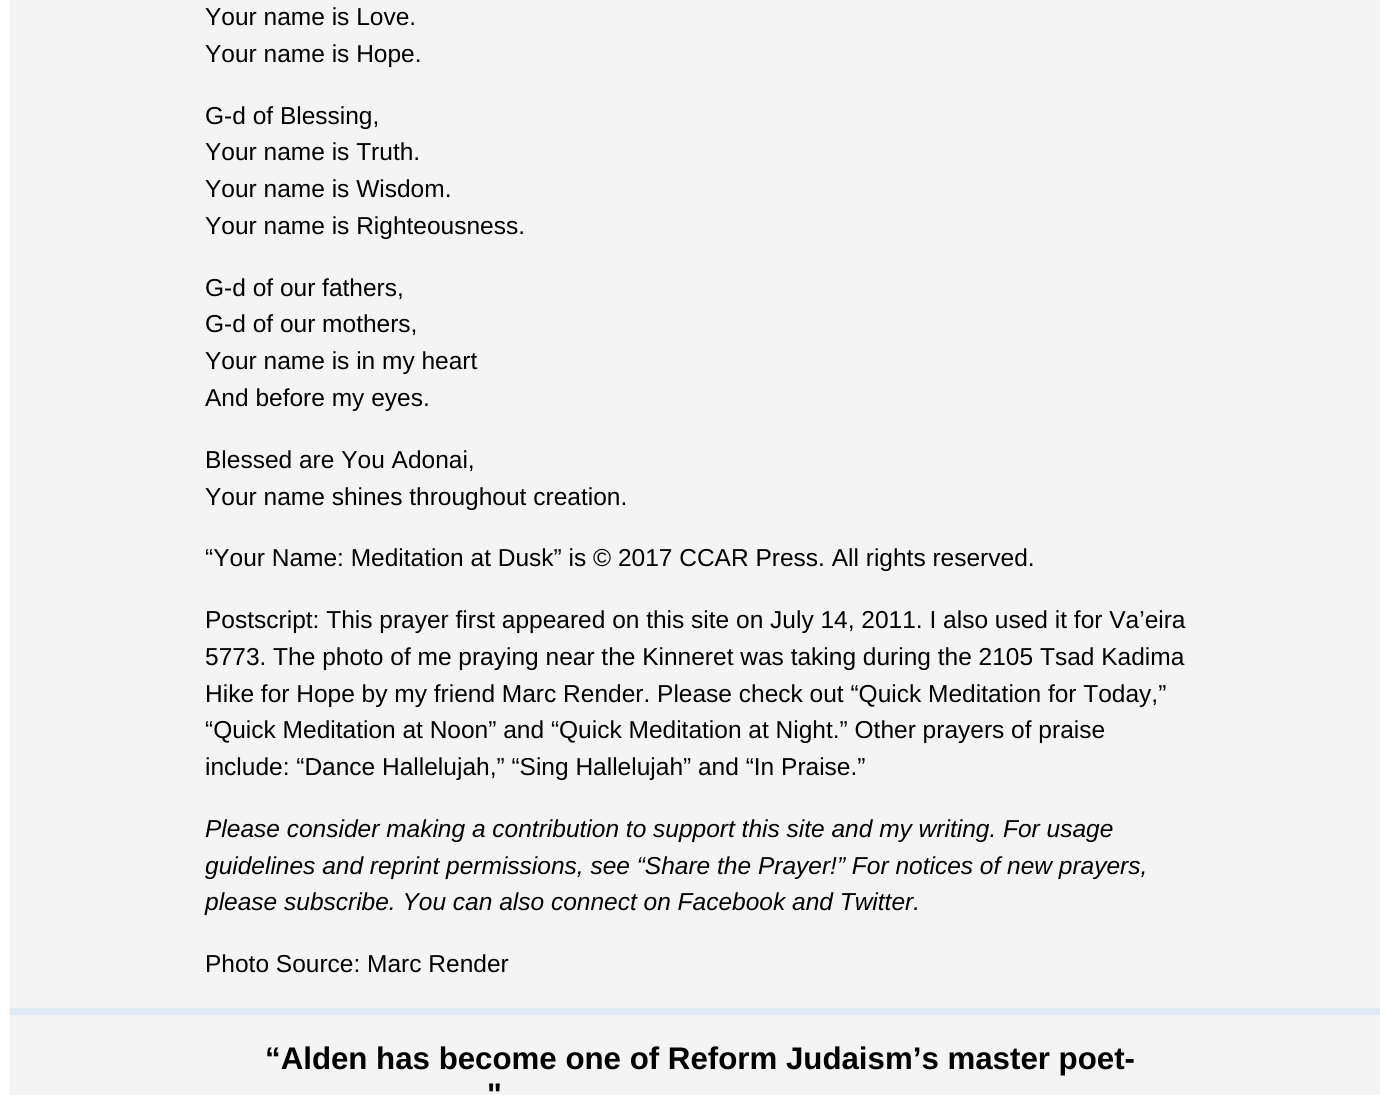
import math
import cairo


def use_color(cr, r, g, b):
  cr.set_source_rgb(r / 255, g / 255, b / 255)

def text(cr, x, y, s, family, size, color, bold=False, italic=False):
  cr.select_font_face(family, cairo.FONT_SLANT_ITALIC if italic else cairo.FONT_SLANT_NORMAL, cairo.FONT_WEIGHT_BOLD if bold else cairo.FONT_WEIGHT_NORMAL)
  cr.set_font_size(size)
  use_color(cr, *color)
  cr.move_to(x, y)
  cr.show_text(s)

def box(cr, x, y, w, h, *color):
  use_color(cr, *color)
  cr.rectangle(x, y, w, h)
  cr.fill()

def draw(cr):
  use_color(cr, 255, 255, 255)
  cr.paint()
  box(cr, 10, 0, 1370, 1008, 244, 244, 244)
  box(cr, 10, 1015, 1370, 80, 244, 244, 244)
  box(cr, 10, 1008, 1370, 7, 221, 233, 247)
  text(cr, 205, 25, "Your name is Love.", "Liberation Sans", 24.5, (0, 0, 0))
  text(cr, 205, 62, "Your name is Hope.", "Liberation Sans", 24.5, (0, 0, 0))
  text(cr, 205, 124, "G-d of Blessing,", "Liberation Sans", 24.5, (0, 0, 0))
  text(cr, 205, 160, "Your name is Truth.", "Liberation Sans", 24.5, (0, 0, 0))
  text(cr, 205, 197, "Your name is Wisdom.", "Liberation Sans", 24.5, (0, 0, 0))
  text(cr, 205, 234, "Your name is Righteousness.", "Liberation Sans", 24.5, (0, 0, 0))
  text(cr, 205, 296, "G-d of our fathers,", "Liberation Sans", 24.5, (0, 0, 0))
  text(cr, 205, 332, "G-d of our mothers,", "Liberation Sans", 24.5, (0, 0, 0))
  text(cr, 205, 369, "Your name is in my heart", "Liberation Sans", 24.5, (0, 0, 0))
  text(cr, 205, 406, "And before my eyes.", "Liberation Sans", 24.5, (0, 0, 0))
  text(cr, 205, 468, "Blessed are You Adonai,", "Liberation Sans", 24.5, (0, 0, 0))
  text(cr, 205, 505, "Your name shines throughout creation.", "Liberation Sans", 24.5, (0, 0, 0))
  text(cr, 205, 566, "“Your Name: Meditation at Dusk” is © 2017 CCAR Press. All rights reserved.", "Liberation Sans", 24.5, (0, 0, 0))
  text(cr, 205, 628, "Postscript: This prayer first appeared on this site on July 14, 2011. I also used it for Va’eira", "Liberation Sans", 24.5, (0, 0, 0))
  text(cr, 205, 665, "5773. The photo of me praying near the Kinneret was taking during the 2105 Tsad Kadima", "Liberation Sans", 24.5, (0, 0, 0))
  text(cr, 205, 702, "Hike for Hope by my friend Marc Render. Please check out “Quick Meditation for Today,”", "Liberation Sans", 24.5, (0, 0, 0))
  text(cr, 205, 738, "“Quick Meditation at Noon” and “Quick Meditation at Night.” Other prayers of praise", "Liberation Sans", 24.5, (0, 0, 0))
  text(cr, 205, 775, "include: “Dance Hallelujah,” “Sing Hallelujah” and “In Praise.”", "Liberation Sans", 24.5, (0, 0, 0))
  text(cr, 205, 837, "Please consider making a contribution to support this site and my writing. For usage", "Liberation Sans", 24.5, (0, 0, 0), italic=True)
  text(cr, 205, 874, "guidelines and reprint permissions, see “Share the Prayer!” For notices of new prayers,", "Liberation Sans", 24.5, (0, 0, 0), italic=True)
  text(cr, 205, 910, "please subscribe. You can also connect on Facebook and Twitter.", "Liberation Sans", 24.5, (0, 0, 0), italic=True)
  text(cr, 205, 972, "Photo Source: Marc Render", "Liberation Sans", 24.5, (0, 0, 0))
  text(cr, 265, 1069, "“Alden has become one of Reform Judaism’s master poet-", "Liberation Sans", 31.25, (0, 0, 0), bold=True)
  text(cr, 487, 1105, "\"", "Liberation Sans", 31.25, (0, 0, 0), bold=True)


surface = cairo.ImageSurface(cairo.FORMAT_RGB24, 1380, 1095)
cr = cairo.Context(surface)
options = cairo.FontOptions()
options.set_hint_metrics(cairo.HINT_METRICS_OFF)
options.set_hint_style(cairo.HINT_STYLE_NONE)
cr.set_font_options(options)
cr.set_miter_limit(4)
draw(cr)
surface.write_to_png("out.png")
